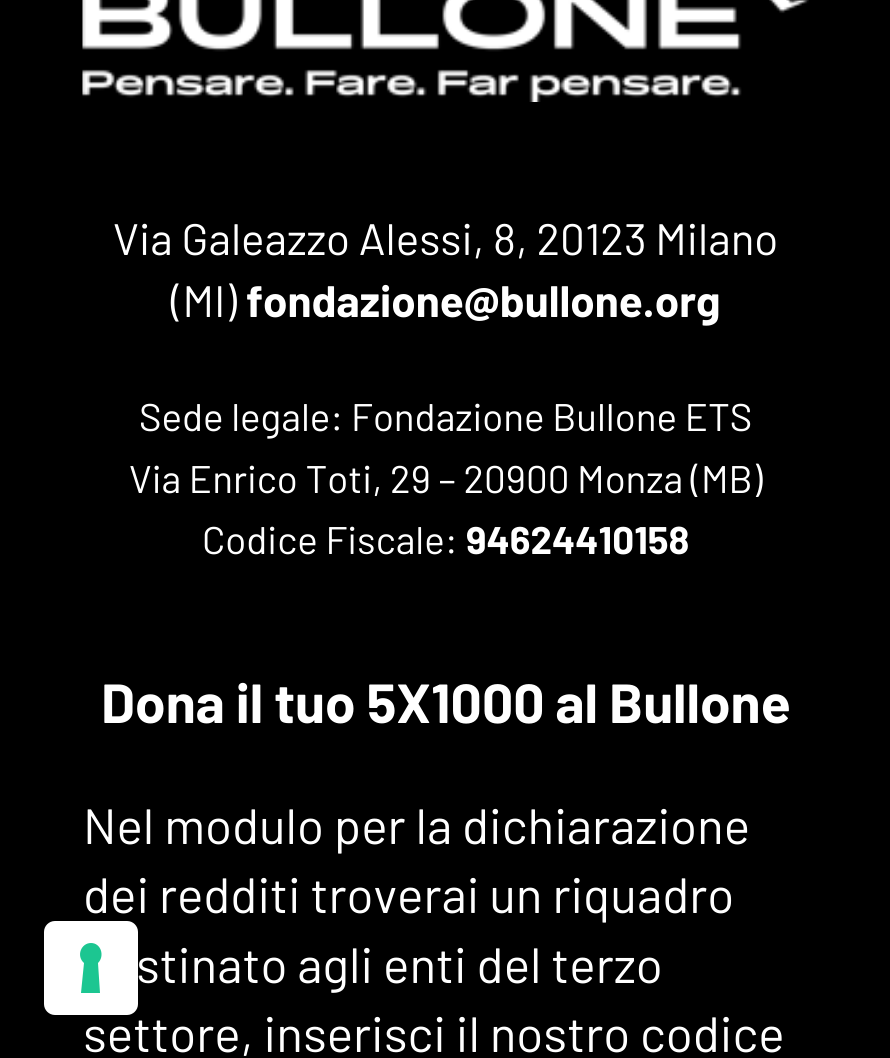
import math
import cairo


def use_color(cr, r, g, b):
  cr.set_source_rgb(r / 255, g / 255, b / 255)

def text(cr, x, y, s, family, size, color, bold=False, italic=False):
  cr.select_font_face(family, cairo.FONT_SLANT_ITALIC if italic else cairo.FONT_SLANT_NORMAL, cairo.FONT_WEIGHT_BOLD if bold else cairo.FONT_WEIGHT_NORMAL)
  cr.set_font_size(size)
  use_color(cr, *color)
  cr.move_to(x, y)
  cr.show_text(s)

def round_rect(cr, x, y, w, h, r):
  cr.new_sub_path()
  for i, (u, v) in enumerate([(x + w - r, y + h - r), (x + r, y + h - r), (x + r, y + r), (x + w - r, y + r)]):
    cr.arc(u, v, r, i * math.pi / 2, (i + 1) * math.pi / 2)
  cr.close_path()

def picture(cr, path, x, y, w, h):
  cr.save()
  cr.set_source_surface(cairo.ImageSurface.create_from_png(path), x, y)
  cr.rectangle(x, y, w, h)
  cr.fill()
  cr.restore()

def draw(cr):
  use_color(cr, 0, 0, 0)
  cr.paint()
  picture(cr, "img_01.png", 82, 0, 727, 102)
  text(cr, 113, 255, "Via Galeazzo Alessi, 8, 20123 Milano", "Barlow", 44, (255, 255, 255))
  text(cr, 171, 317, "(MI)", "Barlow", 44, (255, 255, 255))
  text(cr, 246, 317, "fondazione@bullone.org", "Barlow", 44, (255, 255, 255), bold=True)
  text(cr, 139, 431, "Sede legale: Fondazione Bullone ETS", "Barlow", 38.5, (255, 255, 255))
  text(cr, 129, 493, "Via Enrico Toti, 29 – 20900 Monza (MB)", "Barlow", 38.5, (255, 255, 255))
  text(cr, 202, 554, "Codice Fiscale:", "Barlow", 38.5, (255, 255, 255))
  text(cr, 466, 554, "94624410158", "Barlow", 38.5, (255, 255, 255), bold=True)
  text(cr, 101, 723, "Dona il tuo 5X1000 al Bullone", "Barlow", 55, (255, 255, 255), bold=True)
  text(cr, 83, 844, "Nel modulo per la dichiarazione", "Barlow", 49.5, (255, 255, 255))
  text(cr, 83, 913, "dei redditi troverai un riquadro", "Barlow", 49.5, (255, 255, 255))
  text(cr, 136, 983, "stinato agli enti del terzo", "Barlow", 49.5, (255, 255, 255))
  text(cr, 83, 1052, "settore, inserisci il nostro codice", "Barlow", 49.5, (255, 255, 255))
  round_rect(cr, 42.5, 920.5, 96, 96, 12.5)
  cr.set_source_rgba(0, 0, 0, 0.15)
  cr.set_line_width(3)
  cr.stroke()
  use_color(cr, 255, 255, 255)
  round_rect(cr, 44, 921, 94, 94, 11)
  cr.fill()
  use_color(cr, 28, 198, 145)
  cr.set_fill_rule(cairo.FILL_RULE_EVEN_ODD)
  cr.new_path()
  cr.move_to(91, 943)
  cr.curve_to(101, 943, 105, 956, 98, 963)
  cr.line_to(100, 993)
  cr.line_to(81, 993)
  cr.line_to(84, 963)
  cr.curve_to(76, 956, 81, 943, 91, 943)
  cr.close_path()
  cr.fill()


surface = cairo.ImageSurface(cairo.FORMAT_RGB24, 890, 1058)
cr = cairo.Context(surface)
options = cairo.FontOptions()
options.set_hint_metrics(cairo.HINT_METRICS_OFF)
options.set_hint_style(cairo.HINT_STYLE_NONE)
cr.set_font_options(options)
cr.set_miter_limit(4)
draw(cr)
surface.write_to_png("out.png")
